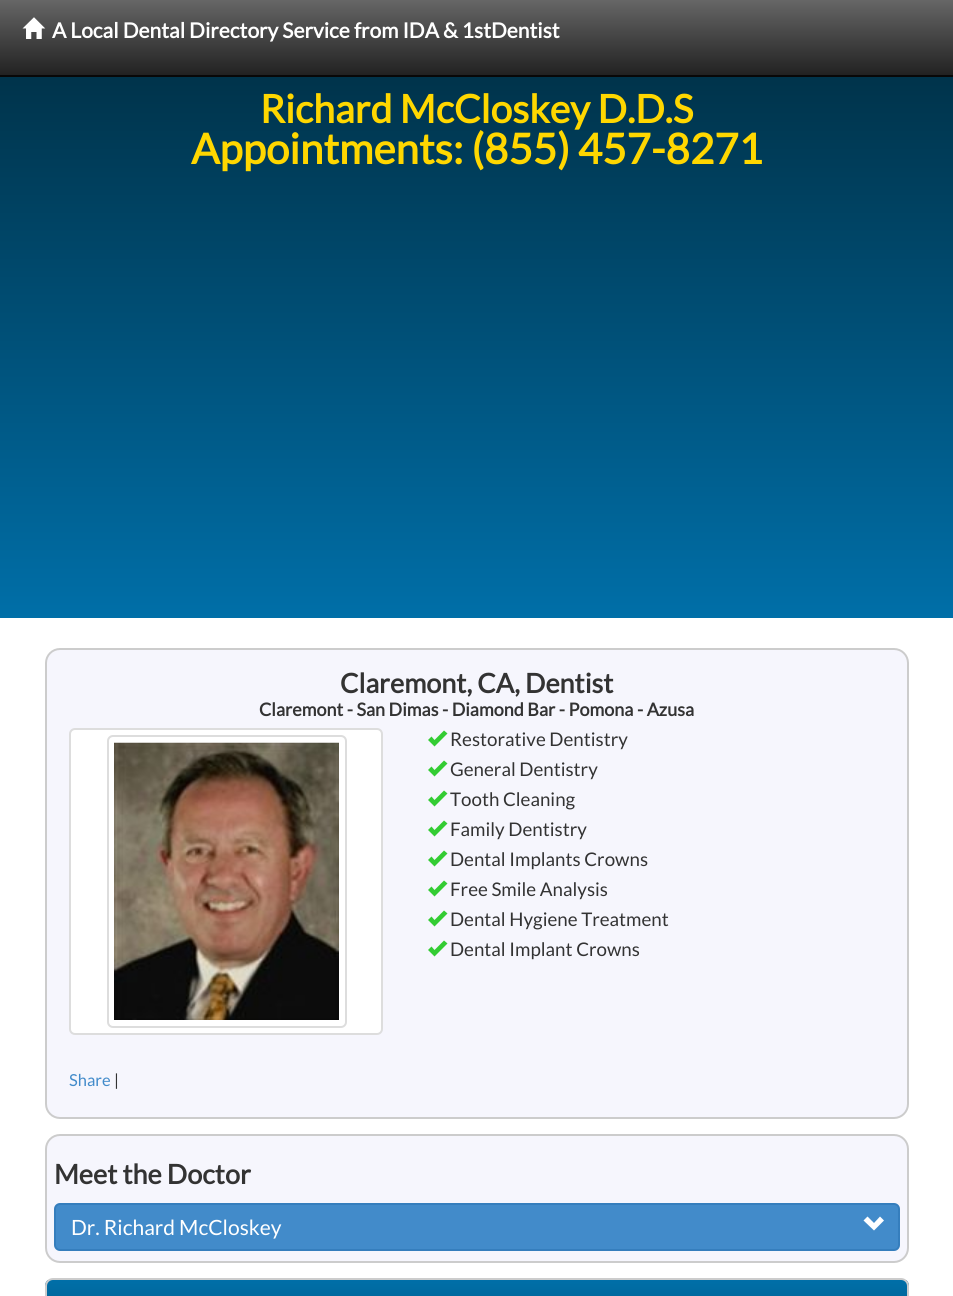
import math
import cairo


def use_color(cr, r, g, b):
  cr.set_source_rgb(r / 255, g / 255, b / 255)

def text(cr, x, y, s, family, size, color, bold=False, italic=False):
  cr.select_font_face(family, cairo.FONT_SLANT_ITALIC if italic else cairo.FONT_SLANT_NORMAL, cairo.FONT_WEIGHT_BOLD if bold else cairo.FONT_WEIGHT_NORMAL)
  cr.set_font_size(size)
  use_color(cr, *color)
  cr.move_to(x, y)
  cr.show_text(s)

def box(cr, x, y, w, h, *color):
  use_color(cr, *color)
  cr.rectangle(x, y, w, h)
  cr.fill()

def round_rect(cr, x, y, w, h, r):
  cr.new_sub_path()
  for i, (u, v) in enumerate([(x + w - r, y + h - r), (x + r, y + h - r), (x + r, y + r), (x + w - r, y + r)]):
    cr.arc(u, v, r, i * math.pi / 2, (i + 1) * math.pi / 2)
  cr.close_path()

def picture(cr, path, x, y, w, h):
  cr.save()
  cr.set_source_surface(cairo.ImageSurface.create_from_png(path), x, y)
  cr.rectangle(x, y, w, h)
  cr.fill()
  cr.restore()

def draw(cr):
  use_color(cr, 255, 255, 255)
  cr.paint()
  gradient = cairo.LinearGradient(477, 0, 477, 75)
  gradient.add_color_stop_rgba(0, 0.4, 0.4, 0.4, 1)
  gradient.add_color_stop_rgba(1, 0.133, 0.133, 0.133, 1)
  cr.set_source(gradient)
  cr.rectangle(0, 0, 953, 75)
  cr.fill()
  box(cr, 0, 75, 953, 2, 8, 8, 8)
  picture(cr, "img_01.png", 22, 17, 24, 22)
  gradient = cairo.LinearGradient(477, 0, 477, 618)
  gradient.add_color_stop_rgba(0, 0, 0.169, 0.243, 1)
  gradient.add_color_stop_rgba(1, 0, 0.435, 0.659, 1)
  cr.set_source(gradient)
  cr.rectangle(0, 77, 953, 541)
  cr.fill()
  use_color(cr, 246, 246, 253)
  round_rect(cr, 46, 649, 862, 469, 14)
  cr.fill_preserve()
  use_color(cr, 204, 204, 204)
  cr.stroke()
  use_color(cr, 255, 255, 255)
  round_rect(cr, 70, 729, 312, 305, 5)
  cr.fill_preserve()
  use_color(cr, 221, 221, 221)
  cr.stroke()
  round_rect(cr, 108, 736, 238, 291, 5)
  cr.stroke()
  picture(cr, "img_02.png", 114, 742, 225, 278)
  use_color(cr, 51, 204, 51)
  cr.new_path()
  cr.move_to(428, 740)
  cr.line_to(434.5, 746.5)
  cr.line_to(447.5, 733.5)
  cr.line_to(444, 730.5)
  cr.line_to(434.5, 740)
  cr.line_to(431.5, 736.5)
  cr.close_path()
  cr.move_to(428, 770)
  cr.line_to(434.5, 776.5)
  cr.line_to(447.5, 763.5)
  cr.line_to(444, 760.5)
  cr.line_to(434.5, 770)
  cr.line_to(431.5, 766.5)
  cr.close_path()
  cr.fill()
  cr.new_path()
  cr.move_to(428, 800)
  cr.line_to(434.5, 806.5)
  cr.line_to(447.5, 793.5)
  cr.line_to(444, 790.5)
  cr.line_to(434.5, 800)
  cr.line_to(431.5, 796.5)
  cr.close_path()
  cr.move_to(428, 830)
  cr.line_to(434.5, 836.5)
  cr.line_to(447.5, 823.5)
  cr.line_to(444, 820.5)
  cr.line_to(434.5, 830)
  cr.line_to(431.5, 826.5)
  cr.close_path()
  cr.fill()
  cr.new_path()
  cr.move_to(428, 860)
  cr.line_to(434.5, 866.5)
  cr.line_to(447.5, 853.5)
  cr.line_to(444, 850.5)
  cr.line_to(434.5, 860)
  cr.line_to(431.5, 856.5)
  cr.close_path()
  cr.move_to(428, 890)
  cr.line_to(434.5, 896.5)
  cr.line_to(447.5, 883.5)
  cr.line_to(444, 880.5)
  cr.line_to(434.5, 890)
  cr.line_to(431.5, 886.5)
  cr.close_path()
  cr.fill()
  cr.new_path()
  cr.move_to(428, 920)
  cr.line_to(434.5, 926.5)
  cr.line_to(447.5, 913.5)
  cr.line_to(444, 910.5)
  cr.line_to(434.5, 920)
  cr.line_to(431.5, 916.5)
  cr.close_path()
  cr.move_to(428, 950)
  cr.line_to(434.5, 956.5)
  cr.line_to(447.5, 943.5)
  cr.line_to(444, 940.5)
  cr.line_to(434.5, 950)
  cr.line_to(431.5, 946.5)
  cr.close_path()
  cr.fill()
  use_color(cr, 246, 246, 253)
  round_rect(cr, 46, 1135, 862, 127, 14)
  cr.fill_preserve()
  use_color(cr, 204, 204, 204)
  cr.stroke()
  use_color(cr, 66, 139, 202)
  round_rect(cr, 55, 1204, 844, 46, 5)
  cr.fill_preserve()
  use_color(cr, 53, 126, 189)
  cr.stroke()
  use_color(cr, 255, 255, 255)
  cr.new_path()
  cr.move_to(863.5, 1220.5)
  cr.line_to(874, 1230.5)
  cr.line_to(884, 1220.5)
  cr.line_to(880, 1216.5)
  cr.line_to(874, 1223)
  cr.line_to(867.5, 1216.5)
  cr.close_path()
  cr.fill()
  cr.save()
  round_rect(cr, 45, 1278, 864, 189, 8)
  cr.clip()
  gradient = cairo.LinearGradient(477, 1280, 477, 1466)
  gradient.add_color_stop_rgba(0, 0, 0.435, 0.659, 1)
  gradient.add_color_stop_rgba(1, 0, 0.169, 0.243, 1)
  cr.set_source(gradient)
  cr.rectangle(45, 1280, 864, 16)
  cr.fill()
  cr.restore()
  round_rect(cr, 46, 1279, 862, 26, 7)
  use_color(cr, 204, 204, 204)
  cr.stroke()
  text(cr, 52, 38, "A Local Dental Directory Service from IDA & 1stDentist", "Lato", 21, (255, 255, 255), bold=True)
  text(cr, 260, 123, "Richard McCloskey D.D.S", "Lato", 39, (255, 215, 0), bold=True)
  text(cr, 191, 164, "Appointments: (855) 457-8271", "Lato", 42, (255, 215, 0), bold=True)
  text(cr, 340, 693, "Claremont, CA, Dentist", "Lato", 27, (51, 51, 51), bold=True)
  text(cr, 259, 716, "Claremont - San Dimas - Diamond Bar - Pomona - Azusa", "Lato", 18, (51, 51, 51), bold=True)
  text(cr, 450, 746, "Restorative Dentistry", "Lato", 18.75, (51, 51, 51))
  text(cr, 450, 776, "General Dentistry", "Lato", 18.75, (51, 51, 51))
  text(cr, 450, 806, "Tooth Cleaning", "Lato", 18.75, (51, 51, 51))
  text(cr, 450, 836, "Family Dentistry", "Lato", 18.75, (51, 51, 51))
  text(cr, 450, 866, "Dental Implants Crowns", "Lato", 18.75, (51, 51, 51))
  text(cr, 450, 896, "Free Smile Analysis", "Lato", 18.75, (51, 51, 51))
  text(cr, 450, 926, "Dental Hygiene Treatment", "Lato", 18.75, (51, 51, 51))
  text(cr, 450, 956, "Dental Implant Crowns", "Lato", 18.75, (51, 51, 51))
  text(cr, 69, 1086, "Share", "Lato", 16.5, (66, 139, 202))
  text(cr, 114, 1086, "|", "Lato", 16.5, (51, 51, 51))
  text(cr, 54, 1184, "Meet the Doctor", "Lato", 27, (51, 51, 51), bold=True)
  text(cr, 71, 1235, "Dr. Richard McCloskey", "Lato", 21, (255, 255, 255))


surface = cairo.ImageSurface(cairo.FORMAT_RGB24, 953, 1296)
cr = cairo.Context(surface)
options = cairo.FontOptions()
options.set_hint_metrics(cairo.HINT_METRICS_OFF)
options.set_hint_style(cairo.HINT_STYLE_NONE)
cr.set_font_options(options)
cr.set_miter_limit(4)
draw(cr)
surface.write_to_png("out.png")
